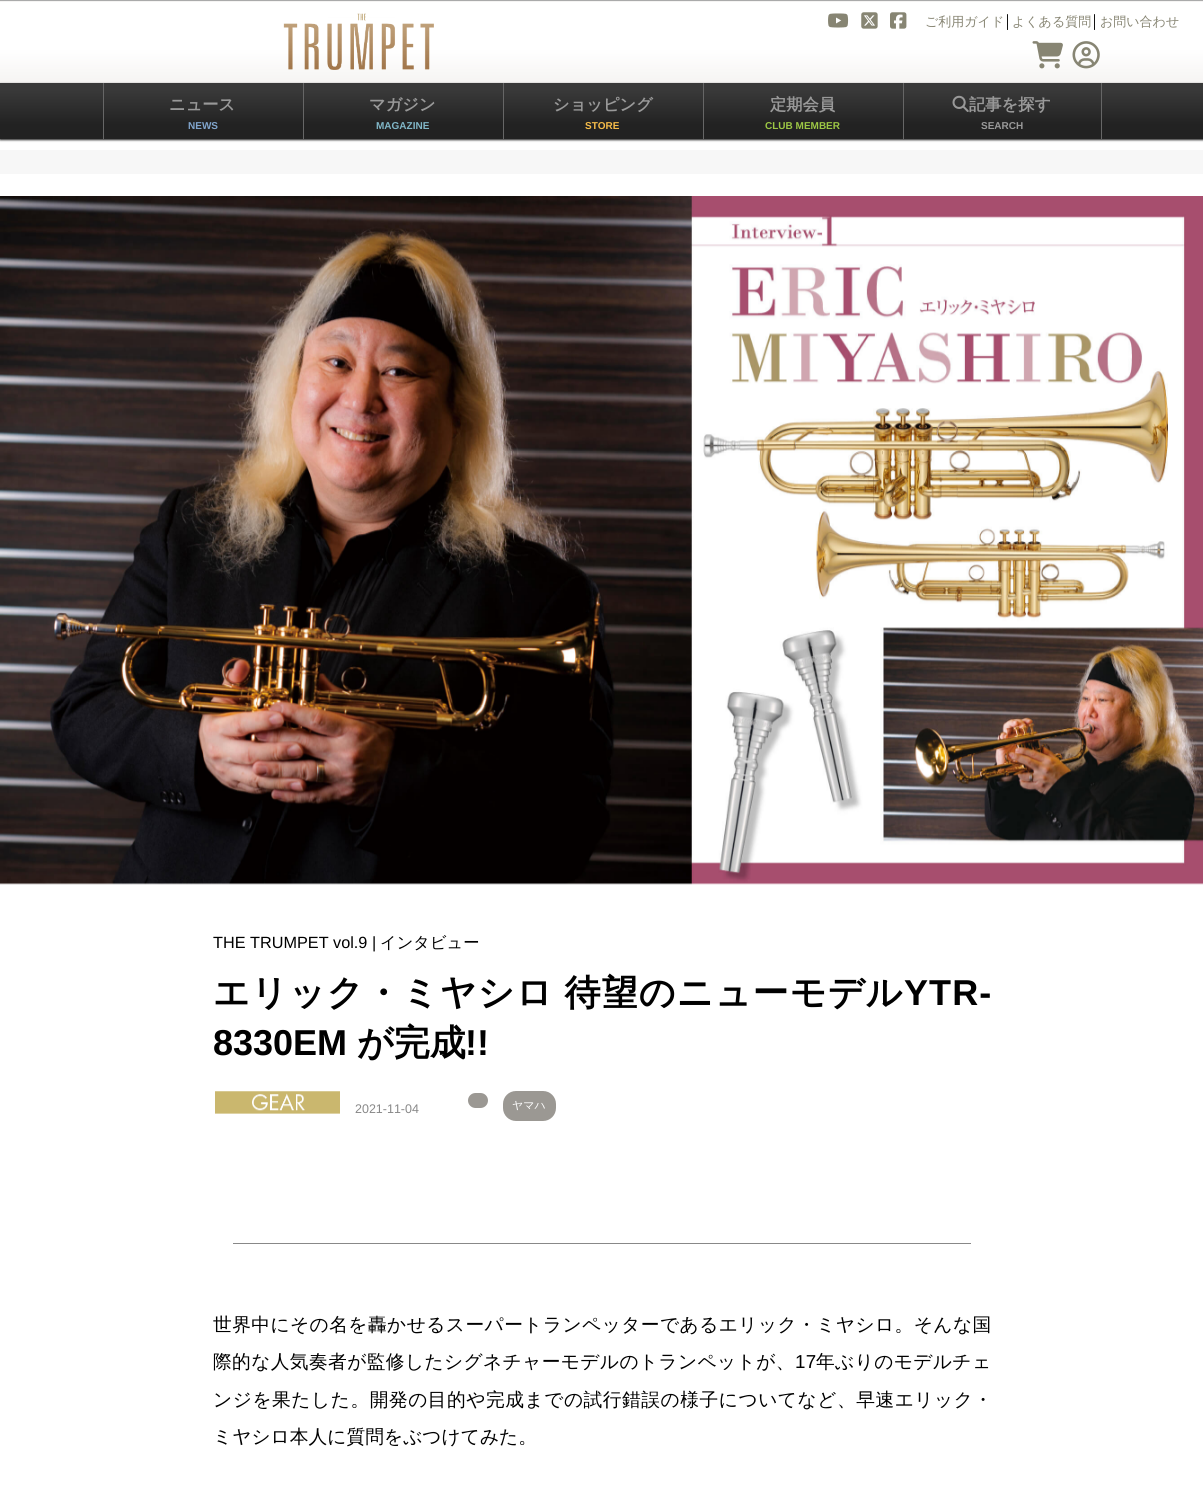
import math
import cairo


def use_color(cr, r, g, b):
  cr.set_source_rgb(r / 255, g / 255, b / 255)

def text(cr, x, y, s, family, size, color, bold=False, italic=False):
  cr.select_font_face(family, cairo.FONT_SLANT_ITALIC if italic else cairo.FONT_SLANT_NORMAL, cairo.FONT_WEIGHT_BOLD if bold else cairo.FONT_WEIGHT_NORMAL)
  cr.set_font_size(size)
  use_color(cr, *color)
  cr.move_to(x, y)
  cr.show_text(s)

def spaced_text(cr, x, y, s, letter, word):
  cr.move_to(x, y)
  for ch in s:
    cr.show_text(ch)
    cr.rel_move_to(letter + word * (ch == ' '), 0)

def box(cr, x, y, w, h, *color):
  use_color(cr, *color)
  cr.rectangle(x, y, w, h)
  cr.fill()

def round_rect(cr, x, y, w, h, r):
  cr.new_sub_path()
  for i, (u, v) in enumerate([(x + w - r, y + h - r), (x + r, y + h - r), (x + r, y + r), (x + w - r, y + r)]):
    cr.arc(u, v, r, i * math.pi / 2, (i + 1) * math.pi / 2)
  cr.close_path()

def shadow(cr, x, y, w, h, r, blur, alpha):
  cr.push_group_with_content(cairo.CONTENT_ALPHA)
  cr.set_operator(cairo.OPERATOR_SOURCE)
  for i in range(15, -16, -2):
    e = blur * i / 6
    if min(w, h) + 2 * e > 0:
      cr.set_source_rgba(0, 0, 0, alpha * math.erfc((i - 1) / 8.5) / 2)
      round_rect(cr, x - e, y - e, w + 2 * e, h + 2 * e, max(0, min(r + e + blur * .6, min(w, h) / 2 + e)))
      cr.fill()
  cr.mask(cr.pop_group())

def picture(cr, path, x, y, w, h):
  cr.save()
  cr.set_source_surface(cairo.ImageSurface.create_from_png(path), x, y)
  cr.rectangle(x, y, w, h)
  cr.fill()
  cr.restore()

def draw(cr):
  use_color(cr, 255, 255, 255)
  cr.paint()
  picture(cr, "img_01.png", 0, 1, 1203, 82)
  box(cr, 0, 0, 1203, 1, 170, 170, 170)
  picture(cr, "img_02.png", 283, 13, 151, 57)
  picture(cr, "img_03.png", 828, 13, 21, 15)
  picture(cr, "img_04.png", 861, 12, 17, 17)
  picture(cr, "img_05.png", 890, 12, 17, 17)
  picture(cr, "img_06.png", 1032, 41, 31, 28)
  picture(cr, "img_07.png", 1072, 41, 28, 28)
  use_color(cr, 34, 34, 34)
  shadow(cr, 0, 84, 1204, 56, 0, 1, 1)
  gradient = cairo.LinearGradient(602, 82, 602, 139)
  gradient.add_color_stop_rgba(0.15, 0.224, 0.224, 0.224, 1)
  gradient.add_color_stop_rgba(0.75, 0.133, 0.133, 0.133, 1)
  cr.set_source(gradient)
  cr.rectangle(0, 83, 1203, 56)
  cr.fill()
  box(cr, 103, 83, 1, 56, 102, 102, 102)
  box(cr, 303, 83, 1, 56, 102, 102, 102)
  box(cr, 503, 83, 1, 56, 102, 102, 102)
  box(cr, 703, 83, 1, 56, 102, 102, 102)
  box(cr, 1101, 83, 1, 56, 102, 102, 102)
  box(cr, 903, 83, 1, 56, 102, 102, 102)
  picture(cr, "img_08.png", 952, 95, 17, 17)
  box(cr, 0, 150, 1203, 24, 247, 247, 247)
  picture(cr, "img_09.png", 0, 196, 1203, 689)
  picture(cr, "img_10.png", 215, 1091, 125, 23)
  use_color(cr, 155, 152, 147)
  round_rect(cr, 468, 1093, 20, 15, 7.5)
  cr.fill()
  round_rect(cr, 503, 1091, 53, 30, 13)
  cr.fill()
  box(cr, 233, 1243, 738, 1, 136, 136, 136)
  text(cr, 925, 26, "ご利用ガイド", "WenQuanYi Zen Hei Medium", 13, (135, 133, 115))
  text(cr, 1004, 26, "│", "Liberation Sans", 13, (0, 0, 0))
  text(cr, 1012, 26, "よくある質問", "WenQuanYi Zen Hei Medium", 13, (135, 133, 115))
  text(cr, 1091, 26, "│", "Liberation Sans", 13, (0, 0, 0))
  text(cr, 1100, 26, "お問い合わせ", "WenQuanYi Zen Hei Medium", 13, (135, 133, 115))
  text(cr, 169, 110, "ニュース", "WenQuanYi Zen Hei", 16.25, (153, 153, 153), bold=True)
  text(cr, 188, 129, "NEWS", "Liberation Sans", 10, (129, 165, 205), bold=True)
  text(cr, 369, 110, "マガジン", "WenQuanYi Zen Hei", 16.25, (153, 153, 153), bold=True)
  text(cr, 376, 129, "MAGAZINE", "Liberation Sans", 10, (129, 183, 200), bold=True)
  text(cr, 553, 110, "ショッピング", "WenQuanYi Zen Hei", 16.25, (153, 153, 153), bold=True)
  text(cr, 585, 129, "STORE", "Liberation Sans", 10, (246, 188, 73), bold=True)
  text(cr, 770, 110, "定期会員", "WenQuanYi Zen Hei", 16.25, (153, 153, 153), bold=True)
  text(cr, 765, 129, "CLUB MEMBER", "Liberation Sans", 10, (156, 199, 68), bold=True)
  text(cr, 969, 110, "記事を探す", "WenQuanYi Zen Hei", 16.25, (153, 153, 153), bold=True)
  text(cr, 981, 129, "SEARCH", "Liberation Sans", 10, (153, 153, 153), bold=True)
  text(cr, 213, 948, "THE TRUMPET vol.9 |", "Liberation Sans", 16.25, (0, 0, 0))
  text(cr, 380, 948, "インタビュー", "WenQuanYi Zen Hei Medium", 16.25, (0, 0, 0))
  cr.select_font_face("WenQuanYi Zen Hei", cairo.FONT_SLANT_NORMAL, cairo.FONT_WEIGHT_BOLD)
  cr.set_font_size(36)
  spaced_text(cr, 213, 1005, "エリック・ミヤシロ 待望のニューモデル", 1.1, -1)
  cr.select_font_face("Liberation Sans", cairo.FONT_SLANT_NORMAL, cairo.FONT_WEIGHT_BOLD)
  spaced_text(cr, 904, 1005, "YTR-", 1.1, 0)
  text(cr, 213, 1055, "8330EM", "Liberation Sans", 36, (0, 0, 0), bold=True)
  text(cr, 357, 1055, "が完成", "WenQuanYi Zen Hei", 36, (0, 0, 0), bold=True)
  text(cr, 465, 1055, "!!", "Liberation Sans", 36, (0, 0, 0), bold=True)
  text(cr, 355, 1113, "2021-11-04", "Liberation Sans", 12.5, (136, 136, 136))
  text(cr, 512, 1109, "ヤマハ", "WenQuanYi Zen Hei Medium", 11, (255, 255, 255))
  cr.set_font_size(18.75)
  use_color(cr, 0, 0, 0)
  spaced_text(cr, 213, 1331, "世界中にその名を轟かせるスーパートランペッターであるエリック・ミヤシロ。そんな国", 0.4, 0)
  spaced_text(cr, 213, 1368, "際的な人気奏者が監修したシグネチャーモデルのトランペットが、", 0.35, 0)
  cr.select_font_face("Liberation Sans")
  spaced_text(cr, 795, 1368, "17", 0.35, 0)
  cr.select_font_face("WenQuanYi Zen Hei Medium")
  spaced_text(cr, 816, 1368, "年ぶりのモデルチェ", 0.35, 0)
  spaced_text(cr, 213, 1406, "ンジを果たした。開発の目的や完成までの試行錯誤の様子についてなど、早速エリック・", 0.5, 0)
  text(cr, 213, 1443, "ミヤシロ本人に質問をぶつけてみた。", "WenQuanYi Zen Hei Medium", 18.75, (0, 0, 0))


surface = cairo.ImageSurface(cairo.FORMAT_RGB24, 1203, 1504)
cr = cairo.Context(surface)
options = cairo.FontOptions()
options.set_hint_metrics(cairo.HINT_METRICS_OFF)
options.set_hint_style(cairo.HINT_STYLE_NONE)
cr.set_font_options(options)
cr.set_miter_limit(4)
draw(cr)
surface.write_to_png("out.png")
